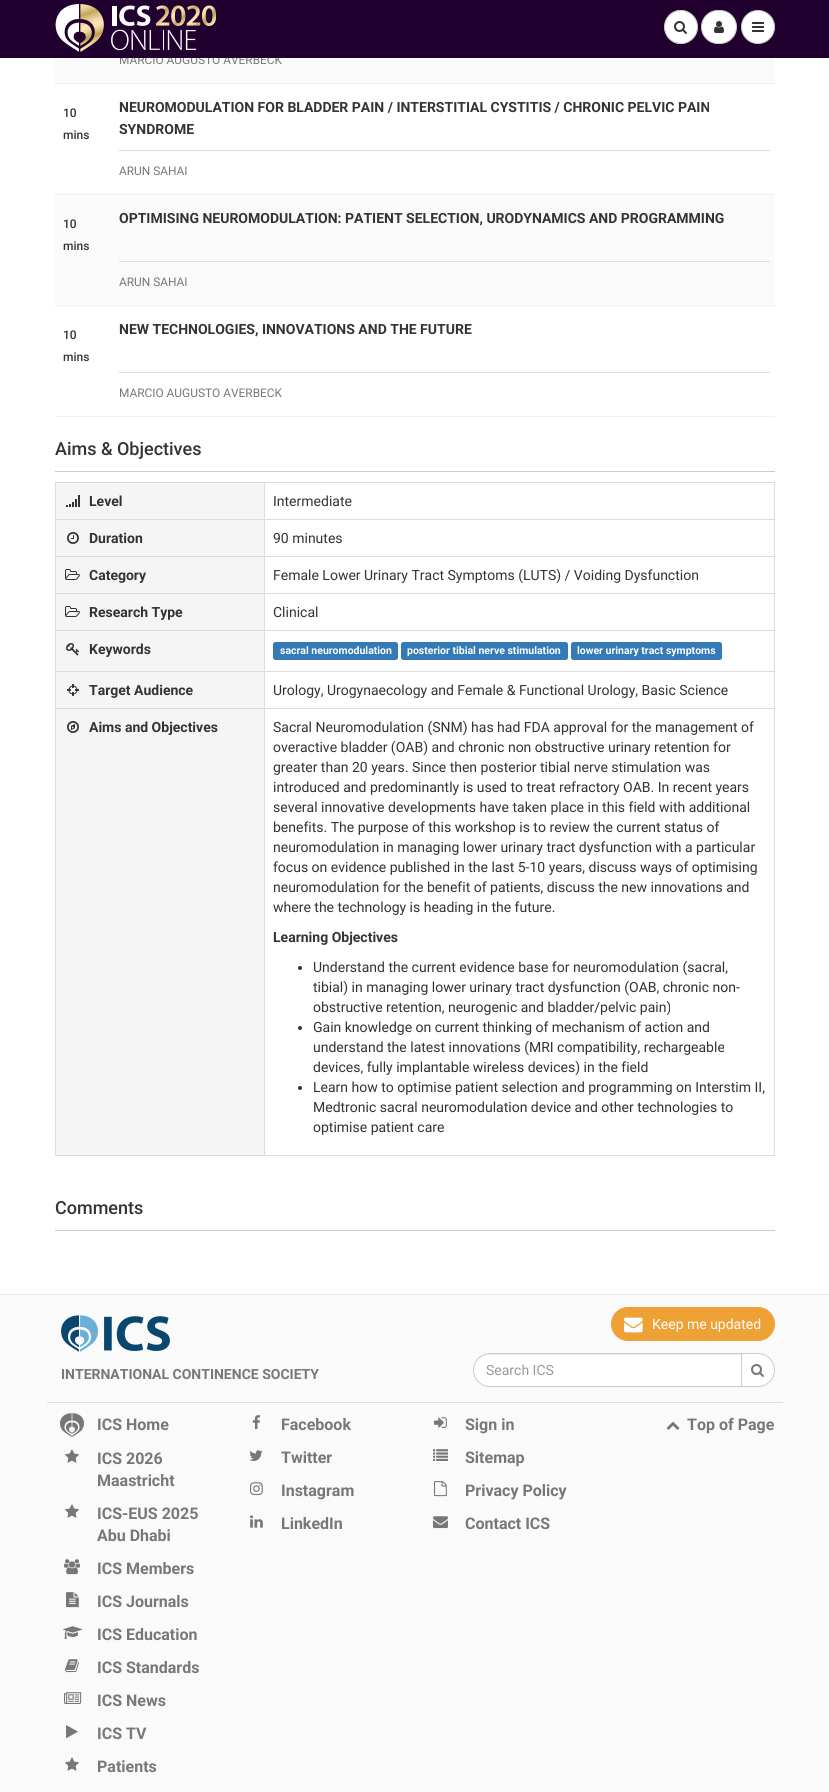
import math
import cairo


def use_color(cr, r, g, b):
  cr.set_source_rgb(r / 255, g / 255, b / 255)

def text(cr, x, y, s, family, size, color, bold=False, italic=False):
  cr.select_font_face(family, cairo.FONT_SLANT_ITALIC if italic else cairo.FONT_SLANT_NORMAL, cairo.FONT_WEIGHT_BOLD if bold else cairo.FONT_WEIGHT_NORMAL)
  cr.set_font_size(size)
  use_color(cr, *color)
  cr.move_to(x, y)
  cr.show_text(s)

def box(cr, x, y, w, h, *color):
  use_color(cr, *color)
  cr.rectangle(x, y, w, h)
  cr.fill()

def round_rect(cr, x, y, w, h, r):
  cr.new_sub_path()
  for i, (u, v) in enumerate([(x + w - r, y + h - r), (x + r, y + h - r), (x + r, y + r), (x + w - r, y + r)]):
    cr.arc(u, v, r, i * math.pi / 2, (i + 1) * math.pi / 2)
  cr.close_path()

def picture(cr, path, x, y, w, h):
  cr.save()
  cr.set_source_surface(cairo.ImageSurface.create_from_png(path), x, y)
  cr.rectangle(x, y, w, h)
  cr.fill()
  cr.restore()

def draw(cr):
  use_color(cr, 255, 255, 255)
  cr.paint()
  box(cr, 55, 58, 720, 25, 250, 250, 250)
  box(cr, 55, 83, 720, 1, 240, 240, 240)
  box(cr, 55, 194, 720, 1, 240, 240, 240)
  box(cr, 119, 150, 651, 1, 221, 221, 221)
  box(cr, 55, 195, 720, 110, 250, 250, 250)
  box(cr, 55, 305, 720, 1, 240, 240, 240)
  box(cr, 119, 261, 651, 1, 221, 221, 221)
  box(cr, 55, 416, 720, 1, 240, 240, 240)
  box(cr, 119, 372, 651, 1, 221, 221, 221)
  box(cr, 55, 471, 720, 1, 204, 204, 204)
  box(cr, 55, 482, 720, 1, 221, 221, 221)
  box(cr, 774, 482, 1, 674, 221, 221, 221)
  box(cr, 55, 1155, 720, 1, 221, 221, 221)
  box(cr, 55, 482, 1, 674, 221, 221, 221)
  box(cr, 56, 483, 208, 36, 245, 245, 245)
  picture(cr, "img_05.png", 66, 495, 14, 12)
  box(cr, 264, 519, 511, 1, 221, 221, 221)
  box(cr, 264, 556, 511, 1, 221, 221, 221)
  box(cr, 264, 593, 511, 1, 221, 221, 221)
  box(cr, 264, 630, 511, 1, 221, 221, 221)
  box(cr, 264, 671, 511, 1, 221, 221, 221)
  box(cr, 264, 708, 511, 1, 221, 221, 221)
  box(cr, 264, 708, 1, 448, 221, 221, 221)
  box(cr, 55, 708, 210, 1, 221, 221, 221)
  box(cr, 264, 671, 1, 38, 221, 221, 221)
  box(cr, 55, 671, 210, 1, 221, 221, 221)
  box(cr, 264, 630, 1, 42, 221, 221, 221)
  box(cr, 55, 630, 210, 1, 221, 221, 221)
  box(cr, 264, 593, 1, 38, 221, 221, 221)
  box(cr, 55, 593, 210, 1, 221, 221, 221)
  box(cr, 264, 556, 1, 38, 221, 221, 221)
  box(cr, 55, 556, 210, 1, 221, 221, 221)
  box(cr, 264, 519, 1, 38, 221, 221, 221)
  box(cr, 55, 519, 210, 1, 221, 221, 221)
  box(cr, 264, 482, 1, 38, 221, 221, 221)
  box(cr, 56, 520, 208, 36, 245, 245, 245)
  picture(cr, "img_06.png", 67, 532, 12, 12)
  box(cr, 56, 557, 208, 36, 245, 245, 245)
  picture(cr, "img_07.png", 65, 569, 15, 11)
  box(cr, 56, 594, 208, 36, 245, 245, 245)
  picture(cr, "img_07.png", 65, 606, 15, 11)
  box(cr, 56, 631, 208, 40, 245, 245, 245)
  picture(cr, "img_08.png", 66, 643, 14, 13)
  use_color(cr, 51, 122, 183)
  round_rect(cr, 273, 642, 125, 18, 2.5)
  cr.fill()
  round_rect(cr, 401, 642, 167, 18, 2.5)
  cr.fill()
  round_rect(cr, 571, 642, 151, 18, 2.5)
  cr.fill()
  box(cr, 56, 672, 208, 36, 245, 245, 245)
  picture(cr, "img_09.png", 67, 684, 12, 12)
  box(cr, 56, 709, 208, 446, 245, 245, 245)
  picture(cr, "img_10.png", 67, 721, 12, 12)
  use_color(cr, 51, 51, 51)
  cr.arc(300, 968, 2, 0, 2 * math.pi)
  cr.fill()
  cr.arc(300, 1028, 2, 0, 2 * math.pi)
  cr.fill()
  cr.arc(300, 1088, 2, 0, 2 * math.pi)
  cr.fill()
  box(cr, 55, 1230, 720, 1, 204, 204, 204)
  box(cr, 0, 1295, 829, 497, 250, 250, 250)
  box(cr, 0, 1294, 829, 1, 231, 231, 231)
  picture(cr, "img_11.png", 61, 1315, 109, 37)
  use_color(cr, 238, 162, 54)
  round_rect(cr, 611.5, 1307.5, 163, 33, 16.5)
  cr.fill_preserve()
  cr.set_line_width(1)
  cr.stroke()
  picture(cr, "img_12.png", 624, 1317, 19, 16)
  use_color(cr, 255, 255, 255)
  round_rect(cr, 473, 1353, 300, 34, 17)
  cr.fill()
  use_color(cr, 236, 236, 236)
  cr.new_path()
  cr.move_to(490, 1355)
  cr.line_to(756, 1355)
  cr.curve_to(765, 1355, 772, 1362, 772, 1370)
  cr.curve_to(772, 1362, 765, 1354, 756, 1354)
  cr.line_to(490, 1354)
  cr.curve_to(481, 1354, 474, 1362, 474, 1370)
  cr.curve_to(474, 1362, 481, 1355, 490, 1355)
  cr.close_path()
  cr.fill()
  round_rect(cr, 473.5, 1353.5, 299, 33, 16.5)
  use_color(cr, 204, 204, 204)
  cr.stroke()
  use_color(cr, 255, 255, 255)
  cr.new_path()
  cr.move_to(741.5, 1353.5)
  cr.line_to(758, 1353.5)
  cr.curve_to(767, 1353.5, 774.5, 1361, 774.5, 1370)
  cr.curve_to(774.5, 1379, 767, 1386.5, 758, 1386.5)
  cr.line_to(741.5, 1386.5)
  cr.close_path()
  cr.fill_preserve()
  use_color(cr, 204, 204, 204)
  cr.stroke()
  picture(cr, "img_13.png", 751, 1364, 13, 13)
  box(cr, 47, 1402, 736, 1, 221, 221, 221)
  picture(cr, "img_14.png", 60, 1413, 24, 24)
  picture(cr, "img_15.png", 65, 1449, 14, 14)
  picture(cr, "img_15.png", 65, 1504, 14, 14)
  picture(cr, "img_16.png", 64, 1559, 17, 16)
  picture(cr, "img_17.png", 66, 1592, 13, 16)
  picture(cr, "img_18.png", 63, 1626, 20, 14)
  picture(cr, "img_19.png", 65, 1659, 14, 14)
  picture(cr, "img_20.png", 64, 1692, 18, 12)
  picture(cr, "img_21.png", 66, 1725, 12, 14)
  picture(cr, "img_15.png", 65, 1757, 14, 14)
  picture(cr, "img_22.png", 252, 1415, 8, 15)
  picture(cr, "img_23.png", 249, 1450, 14, 11)
  picture(cr, "img_24.png", 250, 1482, 13, 14)
  picture(cr, "img_25.png", 250, 1515, 13, 13)
  picture(cr, "img_26.png", 434, 1417, 13, 11)
  picture(cr, "img_27.png", 433, 1449, 15, 12)
  picture(cr, "img_28.png", 434, 1481, 13, 16)
  picture(cr, "img_29.png", 433, 1516, 15, 13)
  picture(cr, "img_30.png", 666, 1421, 14, 9)
  text(cr, 119, 64, "MARCIO AUGUSTO AVERBECK", "Roboto", 11.9, (119, 119, 119))
  box(cr, 0, 0, 829, 58, 33, 0, 48)
  use_color(cr, 255, 255, 255)
  cr.new_path()
  cr.arc(758, 27, 16.5, 0, 2 * math.pi)
  cr.fill_preserve()
  use_color(cr, 204, 204, 204)
  cr.stroke()
  picture(cr, "img_04.png", 752, 22, 12, 10)
  round_rect(cr, 665.5, 10.5, 30, 33, 15)
  cr.stroke()
  use_color(cr, 255, 255, 255)
  cr.arc(681, 27, 16.5, 0, 2 * math.pi)
  cr.fill_preserve()
  use_color(cr, 204, 204, 204)
  cr.stroke()
  picture(cr, "img_02.png", 674, 21, 13, 13)
  use_color(cr, 255, 255, 255)
  round_rect(cr, 701.5, 10.5, 35, 33, 16.5)
  cr.fill_preserve()
  use_color(cr, 204, 204, 204)
  cr.stroke()
  picture(cr, "img_03.png", 714, 21, 10, 12)
  picture(cr, "img_01.png", 55, 4, 161, 48)
  text(cr, 63, 117, "10", "Roboto Medium", 12, (51, 51, 51))
  text(cr, 63, 139, "mins", "Roboto Medium", 12, (51, 51, 51))
  text(cr, 119, 112, "NEUROMODULATION FOR BLADDER PAIN / INTERSTITIAL CYSTITIS / CHRONIC PELVIC PAIN", "Roboto", 14, (51, 51, 51), bold=True)
  text(cr, 119, 134, "SYNDROME", "Roboto", 14, (51, 51, 51), bold=True)
  text(cr, 119, 175, "ARUN SAHAI", "Roboto", 11.9, (119, 119, 119))
  text(cr, 63, 228, "10", "Roboto Medium", 12, (51, 51, 51))
  text(cr, 63, 250, "mins", "Roboto Medium", 12, (51, 51, 51))
  text(cr, 119, 223, "OPTIMISING NEUROMODULATION: PATIENT SELECTION, URODYNAMICS AND PROGRAMMING", "Roboto", 14, (51, 51, 51), bold=True)
  text(cr, 119, 286, "ARUN SAHAI", "Roboto", 11.9, (119, 119, 119))
  text(cr, 63, 339, "10", "Roboto Medium", 12, (51, 51, 51))
  text(cr, 63, 361, "mins", "Roboto Medium", 12, (51, 51, 51))
  text(cr, 119, 334, "NEW TECHNOLOGIES, INNOVATIONS AND THE FUTURE", "Roboto", 14, (51, 51, 51), bold=True)
  text(cr, 119, 397, "MARCIO AUGUSTO AVERBECK", "Roboto", 11.9, (119, 119, 119))
  text(cr, 55, 455, "Aims & Objectives", "Roboto Medium", 18, (51, 51, 51))
  text(cr, 89, 506, "Level", "Roboto", 14, (51, 51, 51), bold=True)
  text(cr, 273, 506, "Intermediate", "Roboto", 14, (51, 51, 51))
  text(cr, 89, 543, "Duration", "Roboto", 14, (51, 51, 51), bold=True)
  text(cr, 273, 543, "90 minutes", "Roboto", 14, (51, 51, 51))
  text(cr, 89, 580, "Category", "Roboto", 14, (51, 51, 51), bold=True)
  text(cr, 273, 580, "Female Lower Urinary Tract Symptoms (LUTS) / Voiding Dysfunction", "Roboto", 14, (51, 51, 51))
  text(cr, 89, 617, "Research Type", "Roboto", 14, (51, 51, 51), bold=True)
  text(cr, 273, 617, "Clinical", "Roboto", 14, (51, 51, 51))
  text(cr, 89, 654, "Keywords", "Roboto", 14, (51, 51, 51), bold=True)
  text(cr, 280, 654, "sacral neuromodulation", "Roboto", 10.5, (255, 255, 255), bold=True)
  text(cr, 407, 654, "posterior tibial nerve stimulation", "Roboto", 10.5, (255, 255, 255), bold=True)
  text(cr, 577, 654, "lower urinary tract symptoms", "Roboto", 10.5, (255, 255, 255), bold=True)
  text(cr, 89, 695, "Target Audience", "Roboto", 14, (51, 51, 51), bold=True)
  text(cr, 273, 695, "Urology, Urogynaecology and Female & Functional Urology, Basic Science", "Roboto", 14, (51, 51, 51))
  text(cr, 89, 732, "Aims and Objectives", "Roboto", 14, (51, 51, 51), bold=True)
  text(cr, 273, 732, "Sacral Neuromodulation (SNM) has had FDA approval for the management of", "Roboto", 14, (51, 51, 51))
  text(cr, 273, 752, "overactive bladder (OAB) and chronic non obstructive urinary retention for", "Roboto", 14, (51, 51, 51))
  text(cr, 273, 772, "greater than 20 years. Since then posterior tibial nerve stimulation was", "Roboto", 14, (51, 51, 51))
  text(cr, 273, 792, "introduced and predominantly is used to treat refractory OAB. In recent years", "Roboto", 14, (51, 51, 51))
  text(cr, 273, 812, "several innovative developments have taken place in this field with additional", "Roboto", 14, (51, 51, 51))
  text(cr, 273, 832, "benefits. The purpose of this workshop is to review the current status of", "Roboto", 14, (51, 51, 51))
  text(cr, 273, 852, "neuromodulation in managing lower urinary tract dysfunction with a particular", "Roboto", 14, (51, 51, 51))
  text(cr, 273, 872, "focus on evidence published in the last 5-10 years, discuss ways of optimising", "Roboto", 14, (51, 51, 51))
  text(cr, 273, 892, "neuromodulation for the benefit of patients, discuss the new innovations and", "Roboto", 14, (51, 51, 51))
  text(cr, 273, 912, "where the technology is heading in the future.", "Roboto", 14, (51, 51, 51))
  text(cr, 273, 942, "Learning Objectives", "Roboto", 14, (51, 51, 51), bold=True)
  text(cr, 313, 972, "Understand the current evidence base for neuromodulation (sacral,", "Roboto", 14, (51, 51, 51))
  text(cr, 313, 992, "tibial) in managing lower urinary tract dysfunction (OAB, chronic non-", "Roboto", 14, (51, 51, 51))
  text(cr, 313, 1012, "obstructive retention, neurogenic and bladder/pelvic pain)", "Roboto", 14, (51, 51, 51))
  text(cr, 313, 1032, "Gain knowledge on current thinking of mechanism of action and", "Roboto", 14, (51, 51, 51))
  text(cr, 313, 1052, "understand the latest innovations (MRI compatibility, rechargeable", "Roboto", 14, (51, 51, 51))
  text(cr, 313, 1072, "devices, fully implantable wireless devices) in the field", "Roboto", 14, (51, 51, 51))
  text(cr, 313, 1092, "Learn how to optimise patient selection and programming on Interstim II,", "Roboto", 14, (51, 51, 51))
  text(cr, 313, 1112, "Medtronic sacral neuromodulation device and other technologies to", "Roboto", 14, (51, 51, 51))
  text(cr, 313, 1132, "optimise patient care", "Roboto", 14, (51, 51, 51))
  text(cr, 55, 1214, "Comments", "Roboto Medium", 18, (51, 51, 51))
  text(cr, 61, 1379, "INTERNATIONAL CONTINENCE SOCIETY", "Roboto", 14, (119, 119, 119), bold=True)
  text(cr, 652, 1329, "Keep me updated", "Roboto", 14, (255, 255, 255))
  text(cr, 486, 1375, "Search ICS", "Roboto", 14, (153, 153, 153))
  text(cr, 97, 1430, "ICS Home", "Roboto", 16, (119, 119, 119), bold=True)
  text(cr, 97, 1464, "ICS 2026", "Roboto", 16, (119, 119, 119), bold=True)
  text(cr, 97, 1486, "Maastricht", "Roboto", 16, (119, 119, 119), bold=True)
  text(cr, 97, 1519, "ICS-EUS 2025", "Roboto", 16, (119, 119, 119), bold=True)
  text(cr, 97, 1541, "Abu Dhabi", "Roboto", 16, (119, 119, 119), bold=True)
  text(cr, 97, 1574, "ICS Members", "Roboto", 16, (119, 119, 119), bold=True)
  text(cr, 97, 1607, "ICS Journals", "Roboto", 16, (119, 119, 119), bold=True)
  text(cr, 97, 1640, "ICS Education", "Roboto", 16, (119, 119, 119), bold=True)
  text(cr, 97, 1673, "ICS Standards", "Roboto", 16, (119, 119, 119), bold=True)
  text(cr, 97, 1706, "ICS News", "Roboto", 16, (119, 119, 119), bold=True)
  text(cr, 97, 1739, "ICS TV", "Roboto", 16, (119, 119, 119), bold=True)
  text(cr, 97, 1772, "Patients", "Roboto", 16, (119, 119, 119), bold=True)
  text(cr, 281, 1430, "Facebook", "Roboto", 16, (119, 119, 119), bold=True)
  text(cr, 281, 1463, "Twitter", "Roboto", 16, (119, 119, 119), bold=True)
  text(cr, 281, 1496, "Instagram", "Roboto", 16, (119, 119, 119), bold=True)
  text(cr, 281, 1529, "LinkedIn", "Roboto", 16, (119, 119, 119), bold=True)
  text(cr, 465, 1430, "Sign in", "Roboto", 16, (119, 119, 119), bold=True)
  text(cr, 465, 1463, "Sitemap", "Roboto", 16, (119, 119, 119), bold=True)
  text(cr, 465, 1496, "Privacy Policy", "Roboto", 16, (119, 119, 119), bold=True)
  text(cr, 465, 1529, "Contact ICS", "Roboto", 16, (119, 119, 119), bold=True)
  text(cr, 687, 1430, "Top of Page", "Roboto", 16, (119, 119, 119), bold=True)


surface = cairo.ImageSurface(cairo.FORMAT_RGB24, 829, 1792)
cr = cairo.Context(surface)
options = cairo.FontOptions()
options.set_hint_metrics(cairo.HINT_METRICS_OFF)
options.set_hint_style(cairo.HINT_STYLE_NONE)
cr.set_font_options(options)
cr.set_miter_limit(4)
draw(cr)
surface.write_to_png("out.png")
